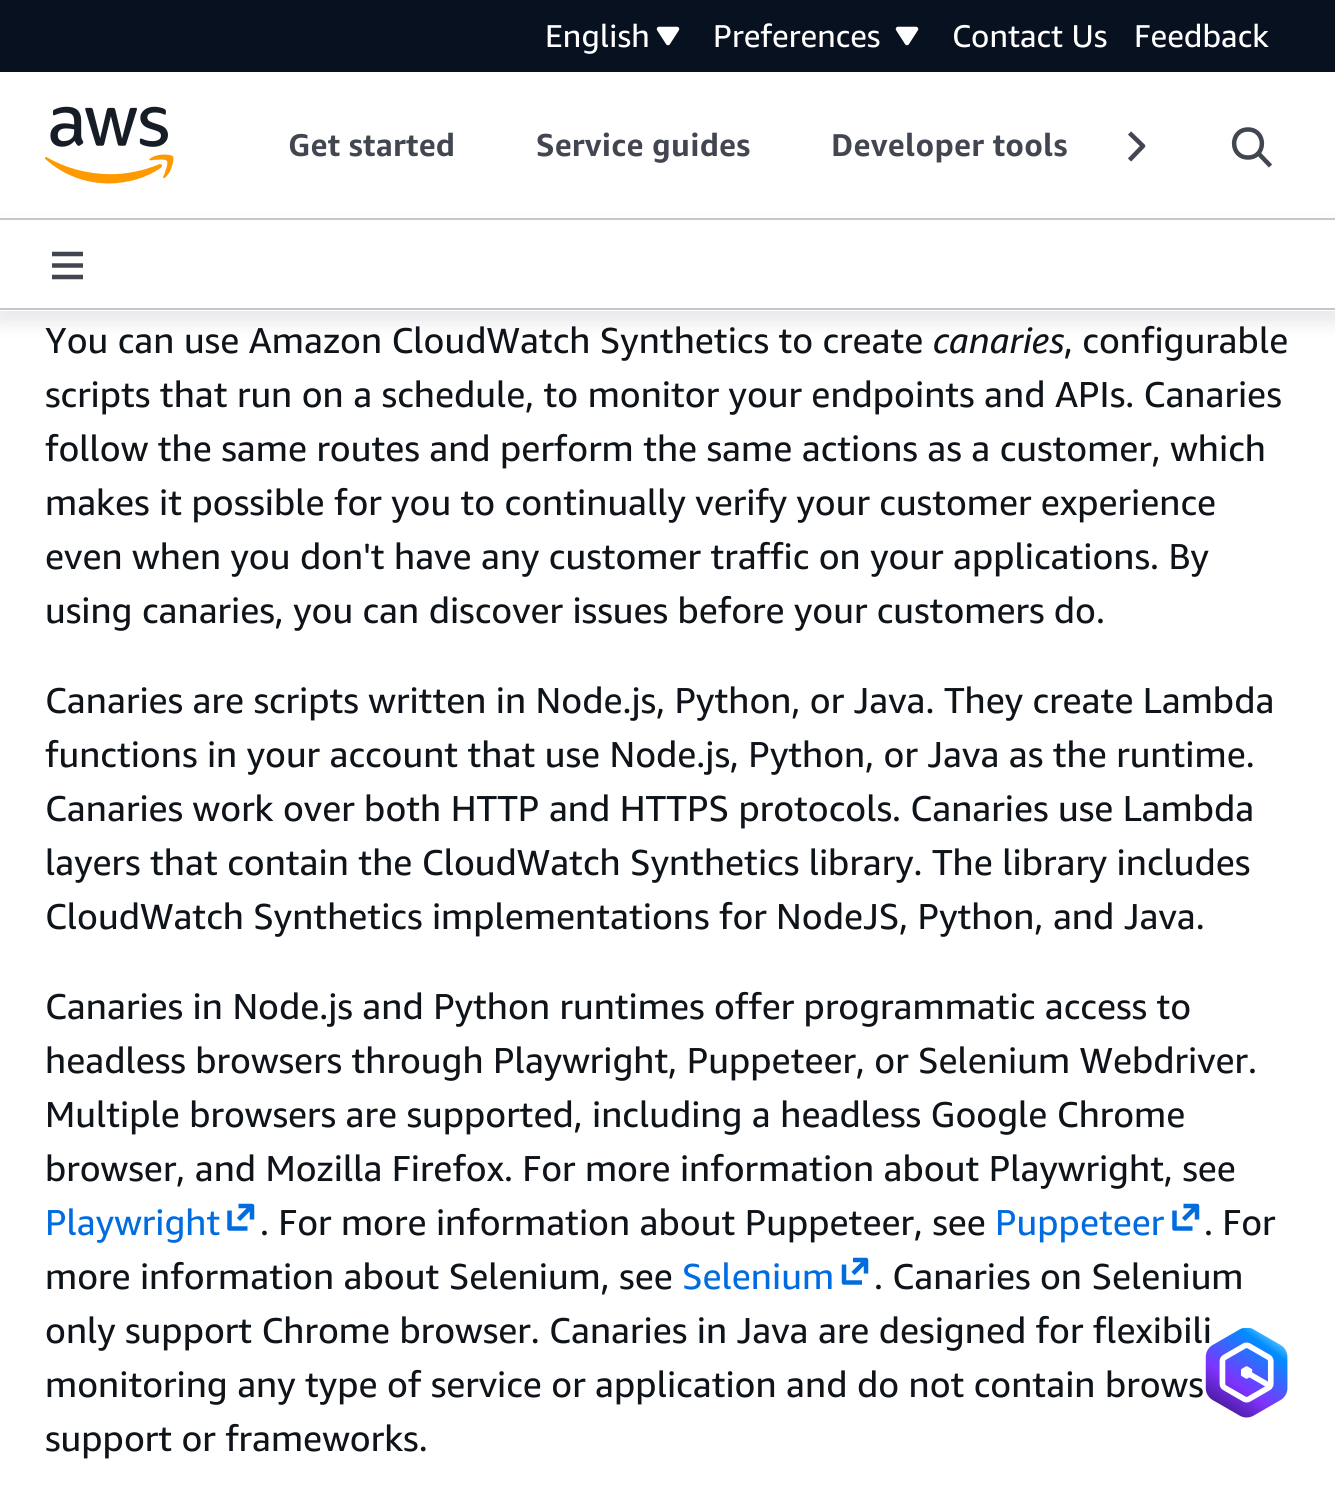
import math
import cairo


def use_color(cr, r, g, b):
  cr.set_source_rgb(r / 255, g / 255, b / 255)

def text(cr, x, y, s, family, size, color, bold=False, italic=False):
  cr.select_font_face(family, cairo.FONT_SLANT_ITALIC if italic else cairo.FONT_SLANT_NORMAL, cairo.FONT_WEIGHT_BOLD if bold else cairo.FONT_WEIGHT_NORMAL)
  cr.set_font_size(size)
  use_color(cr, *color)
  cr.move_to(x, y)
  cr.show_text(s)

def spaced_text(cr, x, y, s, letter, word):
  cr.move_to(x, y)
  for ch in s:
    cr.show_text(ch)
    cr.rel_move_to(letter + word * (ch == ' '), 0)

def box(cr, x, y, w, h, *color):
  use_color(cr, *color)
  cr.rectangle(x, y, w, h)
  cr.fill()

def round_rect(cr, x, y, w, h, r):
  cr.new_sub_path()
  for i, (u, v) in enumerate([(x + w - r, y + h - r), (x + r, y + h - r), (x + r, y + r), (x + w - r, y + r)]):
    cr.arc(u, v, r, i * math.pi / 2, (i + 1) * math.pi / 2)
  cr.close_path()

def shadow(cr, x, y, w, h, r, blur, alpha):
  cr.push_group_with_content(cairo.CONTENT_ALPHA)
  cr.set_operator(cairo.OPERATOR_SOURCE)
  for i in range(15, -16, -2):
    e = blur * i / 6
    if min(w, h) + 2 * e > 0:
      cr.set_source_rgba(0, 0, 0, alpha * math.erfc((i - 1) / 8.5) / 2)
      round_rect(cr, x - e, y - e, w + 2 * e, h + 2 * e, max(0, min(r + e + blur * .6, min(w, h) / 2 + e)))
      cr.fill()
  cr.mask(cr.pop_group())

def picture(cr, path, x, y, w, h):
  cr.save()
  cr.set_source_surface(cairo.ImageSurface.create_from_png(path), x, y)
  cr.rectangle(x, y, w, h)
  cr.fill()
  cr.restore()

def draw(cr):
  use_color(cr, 255, 255, 255)
  cr.paint()
  use_color(cr, 0, 7, 22)
  shadow(cr, -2, 227, 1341, 95, 0, 9, 0.1)
  box(cr, 0, 215, 1335, 96, 255, 255, 255)
  box(cr, 0, 218, 1335, 2, 198, 198, 205)
  box(cr, 0, 0, 1335, 72, 8, 17, 32)
  use_color(cr, 255, 255, 255)
  cr.new_path()
  cr.move_to(668, 43)
  cr.line_to(677, 29)
  cr.line_to(659, 29)
  cr.close_path()
  cr.fill_preserve()
  cr.set_line_width(4.5)
  cr.set_line_join(cairo.LINE_JOIN_ROUND)
  cr.stroke()
  cr.new_path()
  cr.move_to(907, 43)
  cr.line_to(916, 29)
  cr.line_to(898, 29)
  cr.close_path()
  cr.fill_preserve()
  cr.stroke()
  picture(cr, "img_01.png", 45, 106, 129, 78)
  cr.new_path()
  cr.move_to(1129.5, 133)
  cr.line_to(1143, 146)
  cr.line_to(1129.5, 160)
  use_color(cr, 66, 70, 80)
  cr.stroke()
  cr.new_path()
  cr.move_to(1259.5, 154.5)
  cr.line_to(1270.5, 166)
  cr.move_to(1248, 157.5)
  cr.curve_to(1266.5, 157.5, 1266.5, 129.5, 1248, 129.5)
  cr.curve_to(1229.5, 129.5, 1229.5, 157.5, 1248, 157.5)
  cr.close_path()
  cr.stroke()
  box(cr, 0, 308, 1335, 2, 198, 198, 205)
  cr.new_path()
  cr.move_to(83, 254)
  cr.line_to(52, 254)
  cr.move_to(83, 265.5)
  cr.line_to(52, 265.5)
  cr.move_to(83, 277)
  cr.line_to(52, 277)
  use_color(cr, 66, 70, 80)
  cr.stroke()
  cr.new_path()
  cr.move_to(252, 1219.5)
  cr.line_to(252, 1206)
  cr.line_to(238.5, 1206)
  cr.move_to(252, 1206)
  cr.line_to(238.5, 1219.5)
  cr.move_to(229.5, 1210.5)
  cr.line_to(229.5, 1228.5)
  cr.line_to(247.5, 1228.5)
  use_color(cr, 0, 108, 224)
  cr.stroke()
  cr.new_path()
  cr.move_to(1197, 1219.5)
  cr.line_to(1197, 1206)
  cr.line_to(1183.5, 1206)
  cr.move_to(1197, 1206)
  cr.line_to(1183.5, 1219.5)
  cr.move_to(1174.5, 1210.5)
  cr.line_to(1174.5, 1228.5)
  cr.line_to(1192.5, 1228.5)
  cr.stroke()
  cr.new_path()
  cr.move_to(866, 1273.5)
  cr.line_to(866, 1260)
  cr.line_to(853, 1260)
  cr.move_to(866.5, 1260)
  cr.line_to(853, 1273.5)
  cr.move_to(844, 1264.5)
  cr.line_to(844, 1282.5)
  cr.line_to(862, 1282.5)
  cr.stroke()
  cr.select_font_face("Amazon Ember")
  cr.set_font_size(31.5)
  use_color(cr, 255, 255, 255)
  spaced_text(cr, 545, 47, "English", 0.2, 0)
  text(cr, 713, 47, "Preferences", "Amazon Ember", 31.5, (255, 255, 255))
  text(cr, 952, 47, "Contact Us", "Amazon Ember", 31.5, (255, 255, 255))
  text(cr, 1134, 47, "Feedback", "Amazon Ember", 31.5, (255, 255, 255))
  cr.select_font_face("Amazon Ember", cairo.FONT_SLANT_NORMAL, cairo.FONT_WEIGHT_BOLD)
  use_color(cr, 66, 70, 80)
  spaced_text(cr, 288, 156, "Get started", 0.2, 0)
  spaced_text(cr, 536, 156, "Service guides", 0.2, 0)
  spaced_text(cr, 831, 156, "Developer tools", 0.2, 0)
  text(cr, 45, 353, "You can use Amazon CloudWatch Synthetics to create", "Amazon Ember", 36, (15, 20, 26))
  text(cr, 933, 353, "canaries", "Amazon Ember", 36, (15, 20, 26), italic=True)
  text(cr, 1064, 353, ", configurable", "Amazon Ember", 36, (15, 20, 26))
  text(cr, 45, 407, "scripts that run on a schedule, to monitor your endpoints and APIs. Canaries", "Amazon Ember", 36, (15, 20, 26))
  text(cr, 45, 461, "follow the same routes and perform the same actions as a customer, which", "Amazon Ember", 36, (15, 20, 26))
  text(cr, 45, 515, "makes it possible for you to continually verify your customer experience", "Amazon Ember", 36, (15, 20, 26))
  text(cr, 45, 569, "even when you don't have any customer traffic on your applications. By", "Amazon Ember", 36, (15, 20, 26))
  text(cr, 45, 623, "using canaries, you can discover issues before your customers do.", "Amazon Ember", 36, (15, 20, 26))
  text(cr, 45, 713, "Canaries are scripts written in Node.js, Python, or Java. They create Lambda", "Amazon Ember", 36, (15, 20, 26))
  text(cr, 45, 767, "functions in your account that use Node.js, Python, or Java as the runtime.", "Amazon Ember", 36, (15, 20, 26))
  text(cr, 45, 821, "Canaries work over both HTTP and HTTPS protocols. Canaries use Lambda", "Amazon Ember", 36, (15, 20, 26))
  text(cr, 45, 875, "layers that contain the CloudWatch Synthetics library. The library includes", "Amazon Ember", 36, (15, 20, 26))
  text(cr, 45, 929, "CloudWatch Synthetics implementations for NodeJS, Python, and Java.", "Amazon Ember", 36, (15, 20, 26))
  text(cr, 45, 1019, "Canaries in Node.js and Python runtimes offer programmatic access to", "Amazon Ember", 36, (15, 20, 26))
  text(cr, 45, 1073, "headless browsers through Playwright, Puppeteer, or Selenium Webdriver.", "Amazon Ember", 36, (15, 20, 26))
  text(cr, 45, 1127, "Multiple browsers are supported, including a headless Google Chrome", "Amazon Ember", 36, (15, 20, 26))
  text(cr, 45, 1181, "browser, and Mozilla Firefox. For more information about Playwright, see", "Amazon Ember", 36, (15, 20, 26))
  text(cr, 45, 1235, "Playwright", "Amazon Ember", 36, (0, 108, 224))
  text(cr, 260, 1235, ". For more information about Puppeteer, see", "Amazon Ember", 36, (15, 20, 26))
  text(cr, 995, 1235, "Puppeteer", "Amazon Ember", 36, (0, 108, 224))
  text(cr, 1204, 1235, ". For", "Amazon Ember", 36, (15, 20, 26))
  text(cr, 45, 1289, "more information about Selenium, see", "Amazon Ember", 36, (15, 20, 26))
  text(cr, 682, 1289, "Selenium", "Amazon Ember", 36, (0, 108, 224))
  text(cr, 874, 1289, ". Canaries on Selenium", "Amazon Ember", 36, (15, 20, 26))
  text(cr, 45, 1343, "only support Chrome browser. Canaries in Java are designed for flexibili", "Amazon Ember", 36, (15, 20, 26))
  text(cr, 45, 1397, "monitoring any type of service or application and do not contain brows", "Amazon Ember", 36, (15, 20, 26))
  text(cr, 45, 1451, "support or frameworks.", "Amazon Ember", 36, (15, 20, 26))
  picture(cr, "img_02.png", 1205, 1328, 83, 90)


surface = cairo.ImageSurface(cairo.FORMAT_RGB24, 1335, 1497)
cr = cairo.Context(surface)
options = cairo.FontOptions()
options.set_hint_metrics(cairo.HINT_METRICS_OFF)
options.set_hint_style(cairo.HINT_STYLE_NONE)
cr.set_font_options(options)
cr.set_miter_limit(4)
draw(cr)
surface.write_to_png("out.png")
